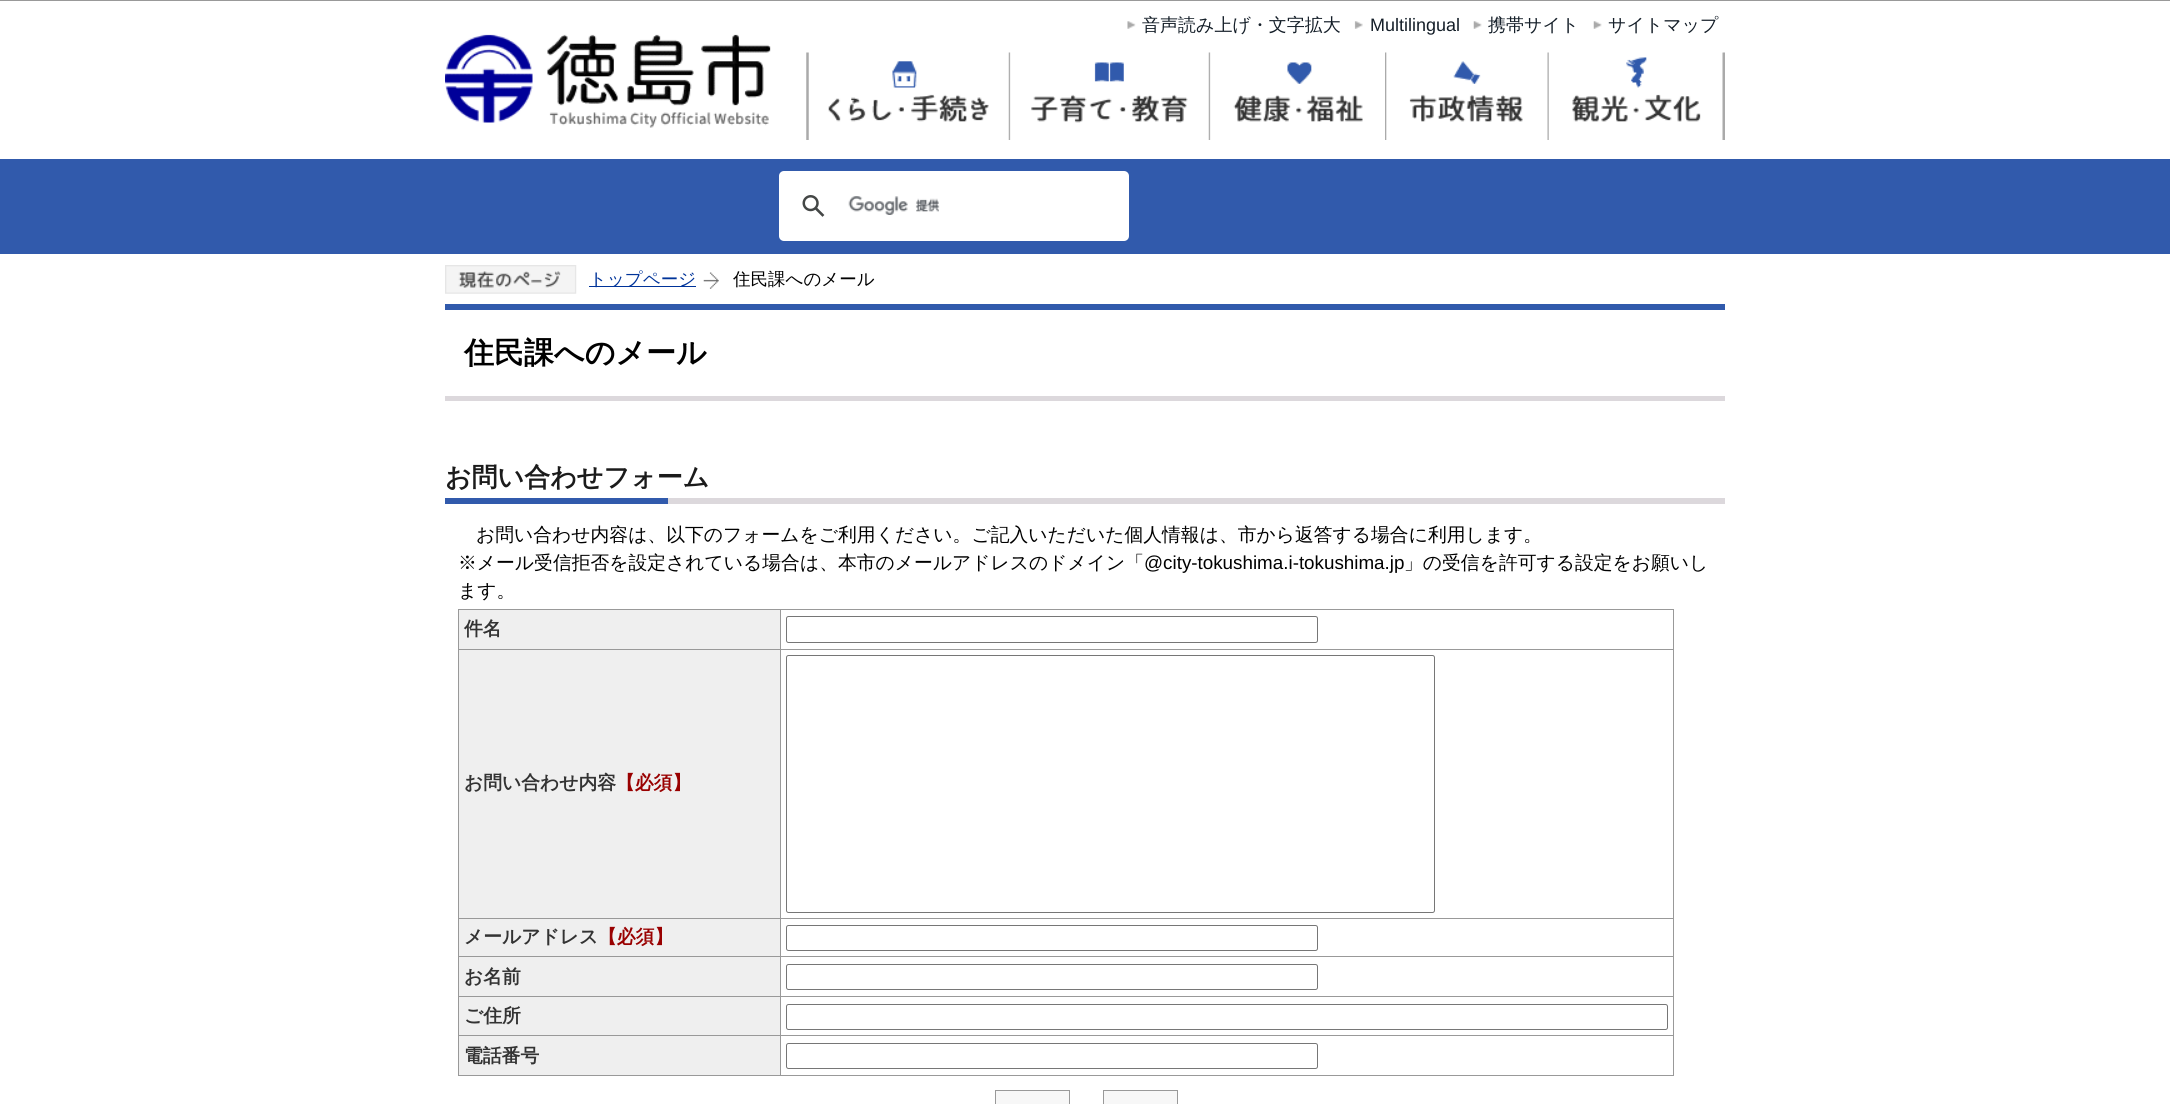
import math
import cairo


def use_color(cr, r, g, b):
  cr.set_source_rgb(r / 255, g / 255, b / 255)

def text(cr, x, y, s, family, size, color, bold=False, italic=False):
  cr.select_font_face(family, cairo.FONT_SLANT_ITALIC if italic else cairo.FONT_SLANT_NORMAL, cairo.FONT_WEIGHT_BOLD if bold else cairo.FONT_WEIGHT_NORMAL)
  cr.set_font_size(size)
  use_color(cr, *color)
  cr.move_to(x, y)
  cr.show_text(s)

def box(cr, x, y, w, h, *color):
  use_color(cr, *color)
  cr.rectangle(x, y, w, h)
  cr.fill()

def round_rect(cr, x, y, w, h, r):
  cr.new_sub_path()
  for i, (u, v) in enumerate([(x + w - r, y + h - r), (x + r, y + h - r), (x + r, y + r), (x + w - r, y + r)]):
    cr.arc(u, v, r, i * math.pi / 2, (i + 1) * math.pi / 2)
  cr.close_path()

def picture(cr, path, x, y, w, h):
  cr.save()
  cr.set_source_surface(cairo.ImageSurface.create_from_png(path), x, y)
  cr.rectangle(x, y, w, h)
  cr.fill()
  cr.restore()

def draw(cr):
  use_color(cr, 255, 255, 255)
  cr.paint()
  box(cr, 0, 0, 2170, 1, 153, 153, 153)
  picture(cr, "img_01.png", 1127, 21, 9, 8)
  picture(cr, "img_02.png", 1354, 21, 9, 8)
  picture(cr, "img_03.png", 1473, 21, 9, 8)
  picture(cr, "img_03.png", 1593, 21, 9, 8)
  picture(cr, "img_04.png", 445, 34, 326, 94)
  picture(cr, "img_05.png", 806, 52, 183, 88)
  picture(cr, "img_06.png", 1008, 52, 180, 88)
  picture(cr, "img_07.png", 1208, 52, 155, 88)
  picture(cr, "img_08.png", 1385, 52, 138, 88)
  picture(cr, "img_09.png", 1547, 52, 178, 88)
  box(cr, 0, 159, 2170, 95, 49, 90, 172)
  use_color(cr, 255, 255, 255)
  round_rect(cr, 779, 171, 350, 70, 5)
  cr.fill()
  picture(cr, "img_10.png", 802, 195, 23, 22)
  picture(cr, "img_11.png", 848, 196, 92, 19)
  picture(cr, "img_12.png", 445, 265, 132, 29)
  picture(cr, "img_13.png", 703, 272, 16, 17)
  box(cr, 589, 286, 107, 1, 0, 51, 153)
  box(cr, 445, 304, 1280, 6, 49, 90, 172)
  box(cr, 445, 396, 1280, 5, 220, 216, 220)
  box(cr, 668, 498, 1057, 6, 220, 216, 220)
  box(cr, 445, 498, 223, 6, 49, 90, 172)
  box(cr, 458, 609, 1216, 1, 153, 153, 153)
  box(cr, 1673, 609, 1, 467, 153, 153, 153)
  box(cr, 458, 1075, 1216, 1, 153, 153, 153)
  box(cr, 458, 609, 1, 467, 153, 153, 153)
  box(cr, 459, 610, 321, 39, 239, 239, 239)
  box(cr, 780, 649, 894, 1, 153, 153, 153)
  box(cr, 780, 918, 894, 1, 153, 153, 153)
  box(cr, 459, 919, 321, 77, 239, 239, 239)
  box(cr, 780, 956, 894, 1, 153, 153, 153)
  box(cr, 780, 996, 894, 1, 153, 153, 153)
  box(cr, 780, 1035, 894, 1, 153, 153, 153)
  box(cr, 780, 1035, 1, 41, 153, 153, 153)
  box(cr, 458, 1035, 323, 1, 153, 153, 153)
  box(cr, 780, 996, 1, 40, 153, 153, 153)
  box(cr, 458, 996, 323, 1, 153, 153, 153)
  box(cr, 780, 956, 1, 42, 153, 153, 153)
  box(cr, 458, 956, 323, 1, 153, 153, 153)
  box(cr, 780, 918, 1, 40, 153, 153, 153)
  box(cr, 458, 918, 323, 1, 153, 153, 153)
  box(cr, 780, 649, 1, 270, 153, 153, 153)
  box(cr, 458, 649, 323, 1, 153, 153, 153)
  box(cr, 780, 609, 1, 41, 153, 153, 153)
  round_rect(cr, 786.5, 616.5, 531, 26, 2)
  use_color(cr, 118, 118, 118)
  cr.set_line_width(1)
  cr.stroke()
  box(cr, 459, 650, 321, 268, 239, 239, 239)
  round_rect(cr, 786.5, 655.5, 648, 257, 2)
  use_color(cr, 118, 118, 118)
  cr.stroke()
  round_rect(cr, 786.5, 925.5, 531, 25, 2)
  cr.stroke()
  round_rect(cr, 786.5, 964.5, 531, 25, 2)
  cr.stroke()
  box(cr, 459, 997, 321, 38, 239, 239, 239)
  round_rect(cr, 786.5, 1004.5, 881, 25, 2)
  use_color(cr, 118, 118, 118)
  cr.stroke()
  box(cr, 459, 1036, 321, 39, 239, 239, 239)
  round_rect(cr, 786.5, 1043.5, 531, 25, 2)
  use_color(cr, 118, 118, 118)
  cr.stroke()
  use_color(cr, 247, 247, 247)
  cr.rectangle(995.5, 1090.5, 74, 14)
  cr.fill_preserve()
  use_color(cr, 153, 153, 153)
  cr.stroke()
  use_color(cr, 247, 247, 247)
  cr.rectangle(1103.5, 1090.5, 74, 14)
  cr.fill_preserve()
  use_color(cr, 153, 153, 153)
  cr.stroke()
  text(cr, 1142, 31, "音声読み上げ・文字拡大", "WenQuanYi Zen Hei Medium", 18, (20, 30, 40))
  text(cr, 1370, 31, "Multilingual", "Liberation Sans", 18, (20, 30, 40))
  text(cr, 1488, 31, "携帯サイト", "WenQuanYi Zen Hei Medium", 18, (20, 30, 40))
  text(cr, 1608, 31, "サイトマップ", "WenQuanYi Zen Hei Medium", 18, (20, 30, 40))
  text(cr, 589, 285, "トップページ", "WenQuanYi Zen Hei Medium", 17.5, (0, 51, 153))
  text(cr, 733, 285, "住民課へのメール", "WenQuanYi Zen Hei Medium", 17.5, (0, 0, 0))
  text(cr, 464, 363, "住民課へのメール", "WenQuanYi Zen Hei", 30, (0, 0, 0), bold=True)
  text(cr, 445, 486, "お問い合わせフォーム", "WenQuanYi Zen Hei", 26, (27, 27, 27), bold=True)
  text(cr, 476, 541, "お問い合わせ内容は、以下のフォームをご利用ください。ご記入いただいた個人情報は、市から返答する場合に利用します。", "WenQuanYi Zen Hei Medium", 18.8, (0, 0, 0))
  text(cr, 458, 569, "※メール受信拒否を設定されている場合は、本市のメールアドレスのドメイン「", "WenQuanYi Zen Hei Medium", 18.8, (0, 0, 0))
  text(cr, 1144, 569, "@city-tokushima.i-tokushima.jp", "Liberation Sans", 18.8, (0, 0, 0))
  text(cr, 1404, 569, "」の受信を許可する設定をお願いし", "WenQuanYi Zen Hei Medium", 18.8, (0, 0, 0))
  text(cr, 458, 597, "ます。", "WenQuanYi Zen Hei Medium", 18.8, (0, 0, 0))
  text(cr, 464, 635, "件名", "WenQuanYi Zen Hei", 18.8, (51, 51, 51), bold=True)
  text(cr, 464, 789, "お問い合わせ内容", "WenQuanYi Zen Hei", 18.8, (51, 51, 51), bold=True)
  text(cr, 616, 789, "【必須】", "WenQuanYi Zen Hei", 18.8, (153, 0, 0), bold=True)
  text(cr, 464, 943, "メールアドレス", "WenQuanYi Zen Hei", 18.8, (51, 51, 51), bold=True)
  text(cr, 598, 943, "【必須】", "WenQuanYi Zen Hei", 18.8, (153, 0, 0), bold=True)
  text(cr, 464, 983, "お名前", "WenQuanYi Zen Hei", 18.8, (51, 51, 51), bold=True)
  text(cr, 464, 1022, "ご住所", "WenQuanYi Zen Hei", 18.8, (51, 51, 51), bold=True)
  text(cr, 464, 1062, "電話番号", "WenQuanYi Zen Hei", 18.8, (51, 51, 51), bold=True)


surface = cairo.ImageSurface(cairo.FORMAT_RGB24, 2170, 1104)
cr = cairo.Context(surface)
options = cairo.FontOptions()
options.set_hint_metrics(cairo.HINT_METRICS_OFF)
options.set_hint_style(cairo.HINT_STYLE_NONE)
cr.set_font_options(options)
cr.set_miter_limit(4)
draw(cr)
surface.write_to_png("out.png")
